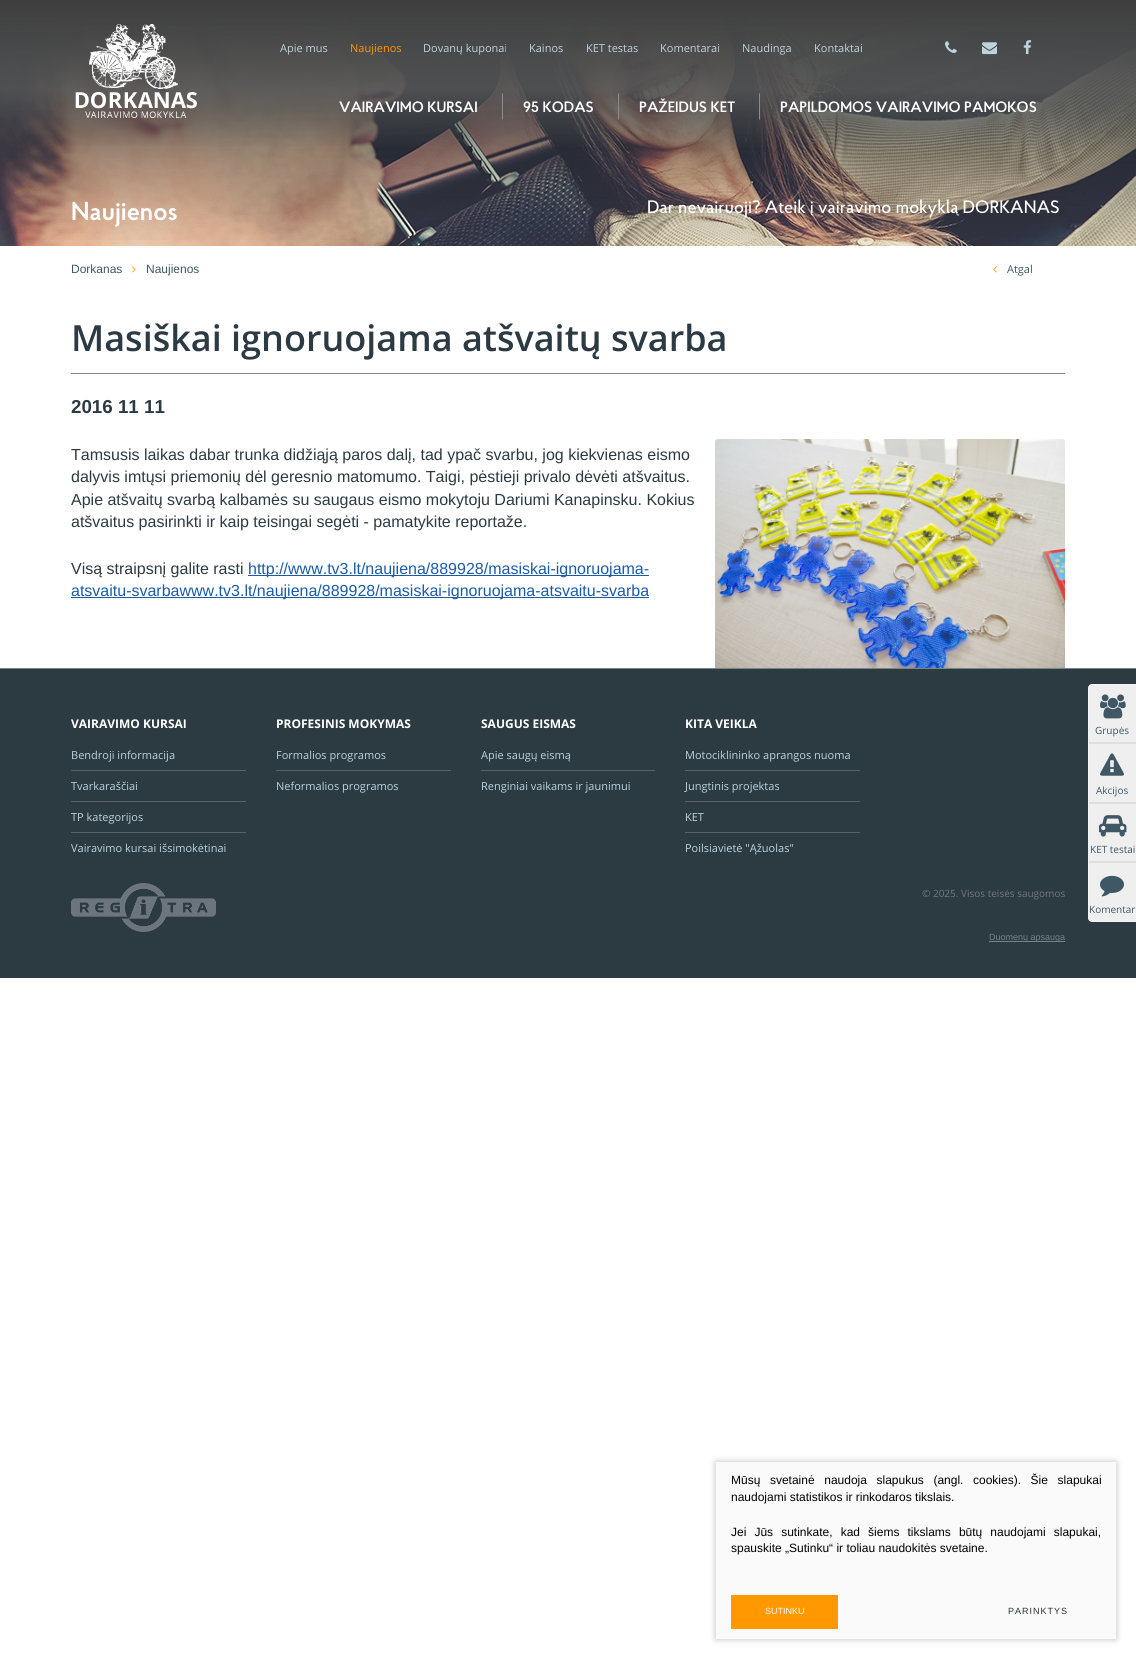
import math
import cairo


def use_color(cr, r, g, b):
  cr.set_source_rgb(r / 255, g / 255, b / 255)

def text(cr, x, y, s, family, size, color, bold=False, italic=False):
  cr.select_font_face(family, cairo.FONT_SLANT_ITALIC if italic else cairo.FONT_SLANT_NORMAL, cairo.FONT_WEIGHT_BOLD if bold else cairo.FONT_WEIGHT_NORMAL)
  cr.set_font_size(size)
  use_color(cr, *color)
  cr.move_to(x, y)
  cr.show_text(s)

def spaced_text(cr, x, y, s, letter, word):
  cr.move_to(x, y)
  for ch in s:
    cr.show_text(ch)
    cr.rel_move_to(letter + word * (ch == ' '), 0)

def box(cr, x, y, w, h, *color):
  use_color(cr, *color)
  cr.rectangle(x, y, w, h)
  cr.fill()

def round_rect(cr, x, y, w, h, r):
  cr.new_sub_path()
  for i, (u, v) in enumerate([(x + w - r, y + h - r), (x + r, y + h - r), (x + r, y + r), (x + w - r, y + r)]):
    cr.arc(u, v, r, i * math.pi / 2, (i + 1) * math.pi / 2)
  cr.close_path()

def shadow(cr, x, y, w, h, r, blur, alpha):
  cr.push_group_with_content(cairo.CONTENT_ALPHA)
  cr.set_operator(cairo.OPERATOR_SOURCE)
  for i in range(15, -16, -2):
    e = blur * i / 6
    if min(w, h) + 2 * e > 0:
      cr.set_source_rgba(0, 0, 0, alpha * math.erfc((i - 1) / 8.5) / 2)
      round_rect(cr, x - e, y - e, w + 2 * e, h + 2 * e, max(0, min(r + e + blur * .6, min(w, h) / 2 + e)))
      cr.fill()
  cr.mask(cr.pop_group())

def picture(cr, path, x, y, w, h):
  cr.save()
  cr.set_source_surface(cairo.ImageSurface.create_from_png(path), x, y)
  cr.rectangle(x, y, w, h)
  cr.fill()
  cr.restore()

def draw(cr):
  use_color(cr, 255, 255, 255)
  cr.paint()
  picture(cr, "img_05.png", 0, 2, 1136, 244)
  picture(cr, "img_06.png", 0, 2, 1136, 238)
  gradient = cairo.LinearGradient(568, 0, 568, 150)
  gradient.add_color_stop_rgba(0, 0.243, 0.243, 0.243, 1)
  gradient.add_color_stop_rgba(0.6, 0.373, 0.373, 0.373, 0.71)
  gradient.add_color_stop_rgba(1, 0.373, 0.373, 0.373, 0)
  cr.set_source(gradient)
  cr.rectangle(0, 0, 1136, 147)
  cr.fill()
  picture(cr, "img_01.png", 75, 24, 122, 94)
  picture(cr, "img_02.png", 945, 41, 12, 12)
  picture(cr, "img_03.png", 982, 42, 15, 13)
  picture(cr, "img_04.png", 1023, 40, 9, 15)
  use_color(cr, 134, 141, 138)
  cr.new_path()
  cr.move_to(502, 120)
  cr.line_to(502, 93)
  cr.line_to(503, 94)
  cr.line_to(503, 119)
  cr.close_path()
  cr.fill()
  cr.new_path()
  cr.move_to(618, 120)
  cr.line_to(618, 93)
  cr.line_to(619, 94)
  cr.line_to(619, 119)
  cr.close_path()
  cr.fill()
  cr.new_path()
  cr.move_to(759, 120)
  cr.line_to(759, 93)
  cr.line_to(760, 94)
  cr.line_to(760, 119)
  cr.close_path()
  cr.fill()
  picture(cr, "img_07.png", 132, 266, 4, 7)
  picture(cr, "img_08.png", 993, 266, 4, 7)
  box(cr, 71, 373, 994, 1, 134, 134, 134)
  picture(cr, "img_09.png", 715, 439, 350, 229)
  box(cr, 248, 575, 401, 1, 26, 91, 169)
  box(cr, 71, 597, 578, 1, 26, 91, 169)
  box(cr, 0, 669, 1136, 309, 44, 58, 66)
  box(cr, 0, 668, 1136, 1, 124, 132, 137)
  box(cr, 71, 770, 175, 1, 86, 97, 104)
  box(cr, 71, 801, 175, 1, 86, 97, 104)
  box(cr, 71, 832, 175, 1, 86, 97, 104)
  box(cr, 276, 770, 175, 1, 86, 97, 104)
  box(cr, 481, 770, 174, 1, 86, 97, 104)
  box(cr, 685, 770, 175, 1, 86, 97, 104)
  box(cr, 685, 801, 175, 1, 86, 97, 104)
  box(cr, 685, 832, 175, 1, 86, 97, 104)
  picture(cr, "img_10.png", 71, 883, 145, 49)
  box(cr, 989, 941, 76, 1, 114, 131, 139)
  use_color(cr, 0, 0, 0)
  shadow(cr, 716, 1462, 400, 177, 0, 3.5, 0.25)
  box(cr, 716, 1462, 400, 177, 250, 250, 250)
  box(cr, 731, 1595, 107, 34, 255, 152, 1)
  use_color(cr, 239, 239, 239)
  cr.new_path()
  cr.move_to(1092, 684)
  cr.line_to(1136, 684)
  cr.line_to(1136, 922)
  cr.line_to(1092, 922)
  cr.curve_to(1090, 922, 1088, 920, 1088, 918)
  cr.line_to(1088, 688)
  cr.curve_to(1088, 686, 1090, 684, 1092, 684)
  cr.close_path()
  cr.fill()
  cr.set_source_rgba(1, 1, 1, 0.3)
  cr.set_fill_rule(cairo.FILL_RULE_EVEN_ODD)
  cr.new_path()
  cr.move_to(1092, 684)
  cr.line_to(1136, 684)
  cr.line_to(1136, 922)
  cr.line_to(1092, 922)
  cr.curve_to(1090, 922, 1088, 920, 1088, 918)
  cr.line_to(1088, 688)
  cr.curve_to(1088, 686, 1090, 684, 1092, 684)
  cr.close_path()
  cr.move_to(1092, 685)
  cr.line_to(1136, 685)
  cr.line_to(1136, 921)
  cr.line_to(1092, 921)
  cr.curve_to(1090, 921, 1089, 920, 1089, 918)
  cr.line_to(1089, 688)
  cr.curve_to(1089, 686, 1090, 685, 1092, 685)
  cr.close_path()
  cr.fill()
  picture(cr, "img_11.png", 1100, 694, 26, 25)
  box(cr, 1089, 742, 47, 2, 223, 223, 223)
  picture(cr, "img_12.png", 1100, 753, 24, 23)
  box(cr, 1089, 802, 47, 2, 223, 223, 223)
  picture(cr, "img_13.png", 1099, 815, 28, 22)
  box(cr, 1089, 861, 47, 2, 223, 223, 223)
  picture(cr, "img_14.png", 1100, 875, 24, 22)
  text(cr, 280, 52, "Apie mus", "Open Sans", 11, (189, 212, 222))
  text(cr, 350, 52, "Naujienos", "Open Sans", 11, (255, 152, 1))
  text(cr, 423, 52, "Dovanų kuponai", "Open Sans", 11, (189, 212, 222))
  text(cr, 529, 52, "Kainos", "Open Sans", 11, (189, 212, 222))
  text(cr, 586, 52, "KET testas", "Open Sans", 11, (189, 212, 222))
  text(cr, 660, 52, "Komentarai", "Open Sans", 11, (189, 212, 222))
  text(cr, 742, 52, "Naudinga", "Open Sans", 11, (189, 212, 222))
  text(cr, 814, 52, "Kontaktai", "Open Sans", 11, (189, 212, 222))
  text(cr, 339, 112, "VAIRAVIMO KURSAI", "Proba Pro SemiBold", 15, (255, 255, 255))
  text(cr, 523, 112, "95 KODAS", "Proba Pro SemiBold", 15, (255, 255, 255))
  text(cr, 639, 112, "PAŽEIDUS KET", "Proba Pro SemiBold", 15, (255, 255, 255))
  text(cr, 780, 112, "PAPILDOMOS VAIRAVIMO PAMOKOS", "Proba Pro SemiBold", 15, (255, 255, 255))
  text(cr, 71, 220, "Naujienos", "Proba Pro SemiBold", 26, (255, 255, 255))
  text(cr, 647, 213, "Dar nevairuoji? Ateik į vairavimo mokyklą DORKANAS", "Proba Pro Medium", 18, (255, 255, 255))
  text(cr, 71, 273, "Dorkanas", "Liberation Sans", 12, (63, 87, 101))
  text(cr, 146, 273, "Naujienos", "Liberation Sans", 12, (63, 87, 101))
  text(cr, 1007, 273, "Atgal", "Open Sans", 11, (63, 87, 101))
  text(cr, 71, 351, "Masiškai ignoruojama atšvaitų svarba", "Open Sans SemiBold", 36, (44, 58, 67))
  text(cr, 71, 413, "2016 11 11", "Liberation Sans", 18.75, (44, 58, 67), bold=True)
  text(cr, 71, 460, "Tamsusis laikas dabar trunka didžiąją paros dalį, tad ypač svarbu, jog kiekvienas eismo", "Liberation Sans", 16, (44, 58, 67))
  text(cr, 71, 482, "dalyvis imtųsi priemonių dėl geresnio matomumo. Taigi, pėstieji privalo dėvėti atšvaitus.", "Liberation Sans", 16, (44, 58, 67))
  text(cr, 71, 505, "Apie atšvaitų svarbą kalbamės su saugaus eismo mokytoju Dariumi Kanapinsku. Kokius", "Liberation Sans", 16, (44, 58, 67))
  text(cr, 71, 527, "atšvaitus pasirinkti ir kaip teisingai segėti - pamatykite reportaže.", "Liberation Sans", 16, (44, 58, 67))
  text(cr, 71, 574, "Visą straipsnį galite rasti", "Liberation Sans", 16, (44, 58, 67))
  text(cr, 248, 574, "http://www.tv3.lt/naujiena/889928/masiskai-ignoruojama-", "Liberation Sans", 16, (26, 91, 169))
  text(cr, 71, 596, "atsvaitu-svarbawww.tv3.lt/naujiena/889928/masiskai-ignoruojama-atsvaitu-svarba", "Liberation Sans", 16, (26, 91, 169))
  text(cr, 71, 728, "VAIRAVIMO KURSAI", "Open Sans", 12, (255, 255, 255), bold=True)
  text(cr, 71, 759, "Bendroji informacija", "Open Sans", 11, (189, 212, 222))
  text(cr, 71, 790, "Tvarkaraščiai", "Open Sans", 11, (189, 212, 222))
  text(cr, 71, 821, "TP kategorijos", "Open Sans", 11, (189, 212, 222))
  text(cr, 71, 852, "Vairavimo kursai išsimokėtinai", "Open Sans", 11, (189, 212, 222))
  text(cr, 276, 728, "PROFESINIS MOKYMAS", "Open Sans", 12, (255, 255, 255), bold=True)
  text(cr, 276, 759, "Formalios programos", "Open Sans", 11, (189, 212, 222))
  text(cr, 276, 790, "Neformalios programos", "Open Sans", 11, (189, 212, 222))
  text(cr, 481, 728, "SAUGUS EISMAS", "Open Sans", 12, (255, 255, 255), bold=True)
  text(cr, 481, 759, "Apie saugų eismą", "Open Sans", 11, (189, 212, 222))
  text(cr, 481, 790, "Renginiai vaikams ir jaunimui", "Open Sans", 11, (189, 212, 222))
  text(cr, 685, 728, "KITA VEIKLA", "Open Sans", 12, (255, 255, 255), bold=True)
  text(cr, 685, 759, "Motociklininko aprangos nuoma", "Open Sans", 11, (189, 212, 222))
  text(cr, 685, 790, "Jungtinis projektas", "Open Sans", 11, (189, 212, 222))
  text(cr, 685, 821, "KET", "Open Sans", 11, (189, 212, 222))
  text(cr, 685, 852, "Poilsiavietė \"Ąžuolas\"", "Open Sans", 11, (189, 212, 222))
  text(cr, 922, 897, "© 2025. Visos teisės saugomos", "Open Sans", 10, (112, 120, 124))
  text(cr, 989, 940, "Duomenų apsauga", "Liberation Sans", 9, (114, 131, 139))
  cr.set_font_size(12)
  use_color(cr, 0, 0, 0)
  spaced_text(cr, 731, 1484, "Mūsų svetainė naudoja slapukus (angl. cookies). Šie slapukai", 0, 6.25)
  text(cr, 731, 1501, "naudojami statistikos ir rinkodaros tikslais.", "Liberation Sans", 12, (0, 0, 0))
  spaced_text(cr, 731, 1536, "Jei Jūs sutinkate, kad šiems tikslams būtų naudojami slapukai,", 0, 4.75)
  text(cr, 731, 1552, "spauskite „Sutinku“ ir toliau naudokitės svetaine.", "Liberation Sans", 12, (0, 0, 0))
  text(cr, 765, 1614, "SUTINKU", "Liberation Sans", 9, (255, 255, 255))
  use_color(cr, 38, 50, 56)
  spaced_text(cr, 1008, 1614, "PARINKTYS", 1, 0)
  text(cr, 1095, 734, "Grupės", "Open Sans", 10, (63, 87, 101))
  text(cr, 1096, 794, "Akcijos", "Open Sans", 10, (63, 87, 101))
  text(cr, 1090, 853, "KET testai", "Open Sans", 10, (63, 87, 101))
  text(cr, 1089, 913, "Komentar", "Open Sans", 10, (63, 87, 101))


surface = cairo.ImageSurface(cairo.FORMAT_RGB24, 1136, 1659)
cr = cairo.Context(surface)
options = cairo.FontOptions()
options.set_hint_metrics(cairo.HINT_METRICS_OFF)
options.set_hint_style(cairo.HINT_STYLE_NONE)
cr.set_font_options(options)
cr.set_miter_limit(4)
draw(cr)
surface.write_to_png("out.png")
